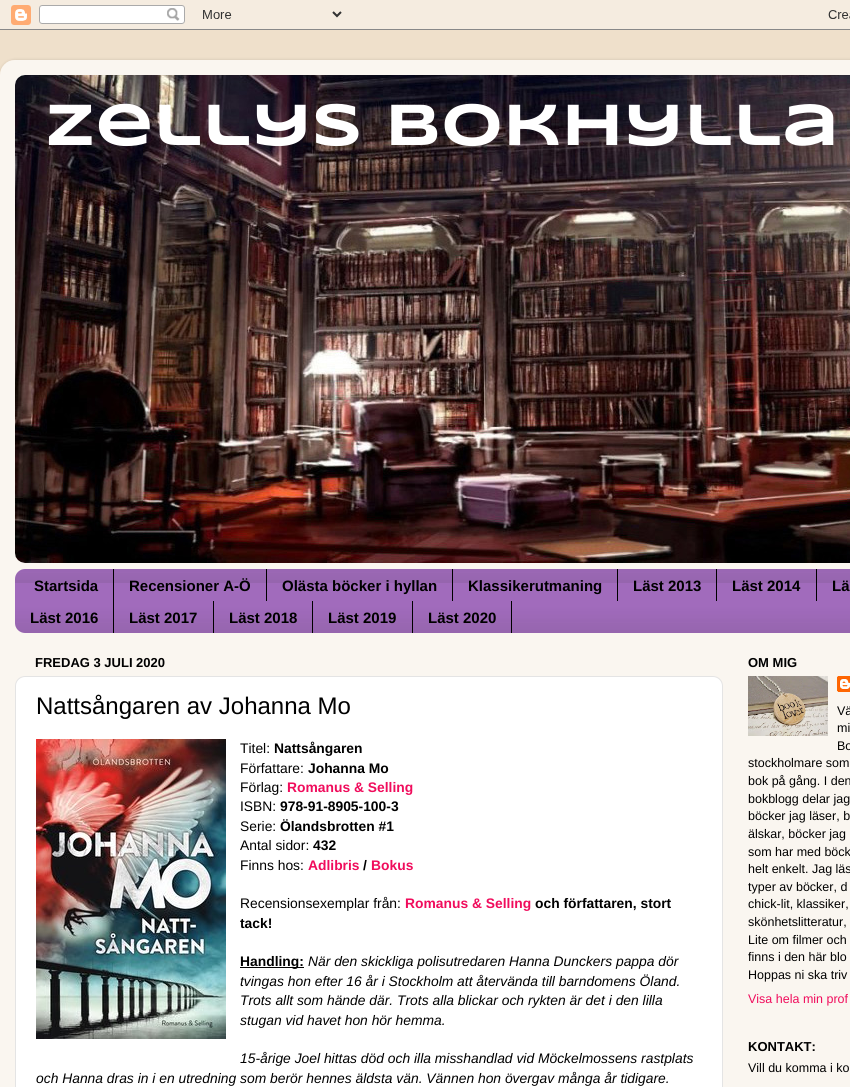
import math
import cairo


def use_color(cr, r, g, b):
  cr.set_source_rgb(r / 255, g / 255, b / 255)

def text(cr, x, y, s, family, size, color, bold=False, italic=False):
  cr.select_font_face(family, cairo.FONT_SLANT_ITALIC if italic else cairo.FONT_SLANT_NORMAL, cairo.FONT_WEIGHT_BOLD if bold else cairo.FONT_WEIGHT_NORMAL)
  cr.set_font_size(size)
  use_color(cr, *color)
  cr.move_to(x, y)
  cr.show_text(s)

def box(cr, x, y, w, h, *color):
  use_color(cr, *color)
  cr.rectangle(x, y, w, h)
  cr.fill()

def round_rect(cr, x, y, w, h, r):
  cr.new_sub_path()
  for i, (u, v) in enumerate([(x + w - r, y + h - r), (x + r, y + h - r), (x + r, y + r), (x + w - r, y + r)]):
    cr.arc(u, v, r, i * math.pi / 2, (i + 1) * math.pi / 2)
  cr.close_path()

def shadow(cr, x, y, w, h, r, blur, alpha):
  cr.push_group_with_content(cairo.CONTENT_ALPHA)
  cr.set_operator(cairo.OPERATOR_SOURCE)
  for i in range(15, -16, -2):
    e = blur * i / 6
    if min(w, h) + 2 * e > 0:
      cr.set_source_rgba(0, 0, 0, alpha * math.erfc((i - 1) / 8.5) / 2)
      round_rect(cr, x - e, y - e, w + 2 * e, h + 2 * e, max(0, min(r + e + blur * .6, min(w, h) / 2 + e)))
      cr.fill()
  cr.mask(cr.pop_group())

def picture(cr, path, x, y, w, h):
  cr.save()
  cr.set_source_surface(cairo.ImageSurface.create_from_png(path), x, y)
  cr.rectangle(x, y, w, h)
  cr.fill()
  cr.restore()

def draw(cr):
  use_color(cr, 239, 224, 203)
  cr.paint()
  picture(cr, "img_01.png", 0, 0, 850, 30)
  cr.save()
  cr.set_fill_rule(cairo.FILL_RULE_EVEN_ODD)
  cr.new_path()
  cr.move_to(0, 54)
  cr.line_to(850, 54)
  cr.line_to(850, 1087)
  cr.line_to(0, 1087)
  cr.close_path()
  cr.move_to(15, 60)
  cr.line_to(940, 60)
  cr.curve_to(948.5, 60, 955, 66.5, 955, 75)
  cr.line_to(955, 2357)
  cr.curve_to(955, 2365.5, 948.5, 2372, 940, 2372)
  cr.line_to(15, 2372)
  cr.curve_to(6.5, 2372, 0, 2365.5, 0, 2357)
  cr.line_to(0, 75)
  cr.curve_to(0, 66.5, 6.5, 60, 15, 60)
  cr.close_path()
  cr.clip()
  use_color(cr, 0, 0, 0)
  shadow(cr, 0, 60, 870, 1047, 15, 1.5, 0.15)
  cr.restore()
  picture(cr, "img_02.png", 0, 60, 850, 1027)
  use_color(cr, 255, 255, 255)
  round_rect(cr, 15, 75, 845, 488, 10)
  cr.fill()
  picture(cr, "img_03.png", 15, 75, 835, 488)
  use_color(cr, 161, 107, 188)
  round_rect(cr, 15, 569, 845, 64, 10)
  cr.fill()
  picture(cr, "img_04.png", 15, 569, 835, 64)
  box(cr, 113, 569, 1, 64, 0, 0, 0)
  box(cr, 266, 569, 1, 32, 0, 0, 0)
  box(cr, 452, 569, 1, 32, 0, 0, 0)
  box(cr, 617, 569, 1, 32, 0, 0, 0)
  box(cr, 716, 569, 1, 32, 0, 0, 0)
  box(cr, 816, 569, 1, 32, 0, 0, 0)
  box(cr, 213, 601, 1, 32, 0, 0, 0)
  box(cr, 312, 601, 1, 32, 0, 0, 0)
  box(cr, 412, 601, 1, 32, 0, 0, 0)
  box(cr, 511, 601, 1, 32, 0, 0, 0)
  use_color(cr, 255, 255, 255)
  round_rect(cr, 15.5, 676.5, 707, 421, 9.5)
  cr.fill_preserve()
  use_color(cr, 228, 228, 228)
  cr.set_line_width(1)
  cr.stroke()
  picture(cr, "img_05.png", 36, 739, 190, 300)
  box(cr, 240, 967, 64, 1, 0, 0, 0)
  picture(cr, "img_06.png", 748, 676, 80, 60)
  picture(cr, "img_07.png", 837, 676, 13, 16)
  text(cr, 45, 145, "Zellys Bokhylla", "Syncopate", 60, (255, 255, 255), bold=True)
  text(cr, 34, 591, "Startsida", "Liberation Sans", 15, (0, 0, 0), bold=True)
  text(cr, 129, 591, "Recensioner A-Ö", "Liberation Sans", 15, (0, 0, 0), bold=True)
  text(cr, 282, 591, "Olästa böcker i hyllan", "Liberation Sans", 15, (0, 0, 0), bold=True)
  text(cr, 468, 591, "Klassikerutmaning", "Liberation Sans", 15, (0, 0, 0), bold=True)
  text(cr, 633, 591, "Läst 2013", "Liberation Sans", 15, (0, 0, 0), bold=True)
  text(cr, 732, 591, "Läst 2014", "Liberation Sans", 15, (0, 0, 0), bold=True)
  text(cr, 832, 591, "Lä", "Liberation Sans", 15, (0, 0, 0), bold=True)
  text(cr, 30, 623, "Läst 2016", "Liberation Sans", 15, (0, 0, 0), bold=True)
  text(cr, 129, 623, "Läst 2017", "Liberation Sans", 15, (0, 0, 0), bold=True)
  text(cr, 229, 623, "Läst 2018", "Liberation Sans", 15, (0, 0, 0), bold=True)
  text(cr, 328, 623, "Läst 2019", "Liberation Sans", 15, (0, 0, 0), bold=True)
  text(cr, 428, 623, "Läst 2020", "Liberation Sans", 15, (0, 0, 0), bold=True)
  text(cr, 35, 667, "FREDAG 3 JULI 2020", "Liberation Sans", 13, (0, 0, 0), bold=True)
  text(cr, 36, 714, "Nattsångaren av Johanna Mo", "Liberation Sans", 24, (0, 0, 0))
  text(cr, 240, 753, "Titel:", "Liberation Sans", 13.85, (0, 0, 0))
  text(cr, 274, 753, "Nattsångaren", "Liberation Sans", 13.85, (0, 0, 0), bold=True)
  text(cr, 240, 773, "Författare:", "Liberation Sans", 13.85, (0, 0, 0))
  text(cr, 308, 773, "Johanna Mo", "Liberation Sans", 13.85, (0, 0, 0), bold=True)
  text(cr, 240, 792, "Förlag:", "Liberation Sans", 13.85, (0, 0, 0))
  text(cr, 287, 792, "Romanus & Selling", "Liberation Sans", 13.85, (240, 12, 92), bold=True)
  text(cr, 240, 811, "ISBN:", "Liberation Sans", 13.85, (0, 0, 0))
  text(cr, 280, 811, "978-91-8905-100-3", "Liberation Sans", 13.85, (0, 0, 0), bold=True)
  text(cr, 240, 831, "Serie:", "Liberation Sans", 13.85, (0, 0, 0))
  text(cr, 280, 831, "Ölandsbrotten #1", "Liberation Sans", 13.85, (0, 0, 0), bold=True)
  text(cr, 240, 850, "Antal sidor:", "Liberation Sans", 13.85, (0, 0, 0))
  text(cr, 313, 850, "432", "Liberation Sans", 13.85, (0, 0, 0), bold=True)
  text(cr, 240, 870, "Finns hos:", "Liberation Sans", 13.85, (0, 0, 0))
  text(cr, 308, 870, "Adlibris", "Liberation Sans", 13.85, (240, 12, 92), bold=True)
  text(cr, 363, 870, "/", "Liberation Sans", 13.85, (0, 0, 0), bold=True)
  text(cr, 371, 870, "Bokus", "Liberation Sans", 13.85, (240, 12, 92), bold=True)
  text(cr, 240, 908, "Recensionsexemplar från:", "Liberation Sans", 13.85, (0, 0, 0))
  text(cr, 405, 908, "Romanus & Selling", "Liberation Sans", 13.85, (240, 12, 92), bold=True)
  text(cr, 535, 908, "och författaren, stort", "Liberation Sans", 13.85, (0, 0, 0), bold=True)
  text(cr, 240, 928, "tack!", "Liberation Sans", 13.85, (0, 0, 0), bold=True)
  text(cr, 240, 966, "Handling:", "Liberation Sans", 13.85, (0, 0, 0), bold=True)
  text(cr, 308, 966, "När den skickliga polisutredaren Hanna Dunckers pappa dör", "Liberation Sans", 13.85, (0, 0, 0), italic=True)
  text(cr, 240, 986, "tvingas hon efter 16 år i Stockholm att återvända till barndomens Öland.", "Liberation Sans", 13.85, (0, 0, 0), italic=True)
  text(cr, 240, 1005, "Trots allt som hände där. Trots alla blickar och rykten är det i den lilla", "Liberation Sans", 13.85, (0, 0, 0), italic=True)
  text(cr, 240, 1025, "stugan vid havet hon hör hemma.", "Liberation Sans", 13.85, (0, 0, 0), italic=True)
  text(cr, 240, 1063, "15-årige Joel hittas död och illa misshandlad vid Möckelmossens rastplats", "Liberation Sans", 13.85, (0, 0, 0), italic=True)
  text(cr, 36, 1083, "och Hanna dras in i en utredning som berör hennes äldsta vän. Vännen hon övergav många år tidigare.", "Liberation Sans", 13.85, (0, 0, 0), italic=True)
  text(cr, 748, 667, "OM MIG", "Liberation Sans", 13, (0, 0, 0), bold=True)
  text(cr, 837, 715, "Vä", "Liberation Sans", 12.5, (0, 0, 0))
  text(cr, 837, 732, "mi", "Liberation Sans", 12.5, (0, 0, 0))
  text(cr, 837, 750, "Bo", "Liberation Sans", 12.5, (0, 0, 0))
  text(cr, 748, 767, "stockholmare som", "Liberation Sans", 12.5, (0, 0, 0))
  text(cr, 748, 785, "bok på gång. I den", "Liberation Sans", 12.5, (0, 0, 0))
  text(cr, 748, 803, "bokblogg delar jag", "Liberation Sans", 12.5, (0, 0, 0))
  text(cr, 748, 820, "böcker jag läser, b", "Liberation Sans", 12.5, (0, 0, 0))
  text(cr, 748, 838, "älskar, böcker jag", "Liberation Sans", 12.5, (0, 0, 0))
  text(cr, 748, 856, "som har med böck", "Liberation Sans", 12.5, (0, 0, 0))
  text(cr, 748, 873, "helt enkelt. Jag läs", "Liberation Sans", 12.5, (0, 0, 0))
  text(cr, 748, 891, "typer av böcker, d", "Liberation Sans", 12.5, (0, 0, 0))
  text(cr, 748, 908, "chick-lit, klassiker,", "Liberation Sans", 12.5, (0, 0, 0))
  text(cr, 748, 926, "skönhetslitteratur,", "Liberation Sans", 12.5, (0, 0, 0))
  text(cr, 748, 944, "Lite om filmer och", "Liberation Sans", 12.5, (0, 0, 0))
  text(cr, 748, 961, "finns i den här blo", "Liberation Sans", 12.5, (0, 0, 0))
  text(cr, 748, 979, "Hoppas ni ska triv", "Liberation Sans", 12.5, (0, 0, 0))
  text(cr, 748, 1003, "Visa hela min prof", "Liberation Sans", 12.5, (240, 12, 92))
  text(cr, 748, 1051, "KONTAKT:", "Liberation Sans", 13, (0, 0, 0), bold=True)
  text(cr, 748, 1072, "Vill du komma i ko", "Liberation Sans", 12.5, (0, 0, 0))


surface = cairo.ImageSurface(cairo.FORMAT_RGB24, 850, 1087)
cr = cairo.Context(surface)
options = cairo.FontOptions()
options.set_hint_metrics(cairo.HINT_METRICS_OFF)
options.set_hint_style(cairo.HINT_STYLE_NONE)
cr.set_font_options(options)
cr.set_miter_limit(4)
draw(cr)
surface.write_to_png("out.png")
